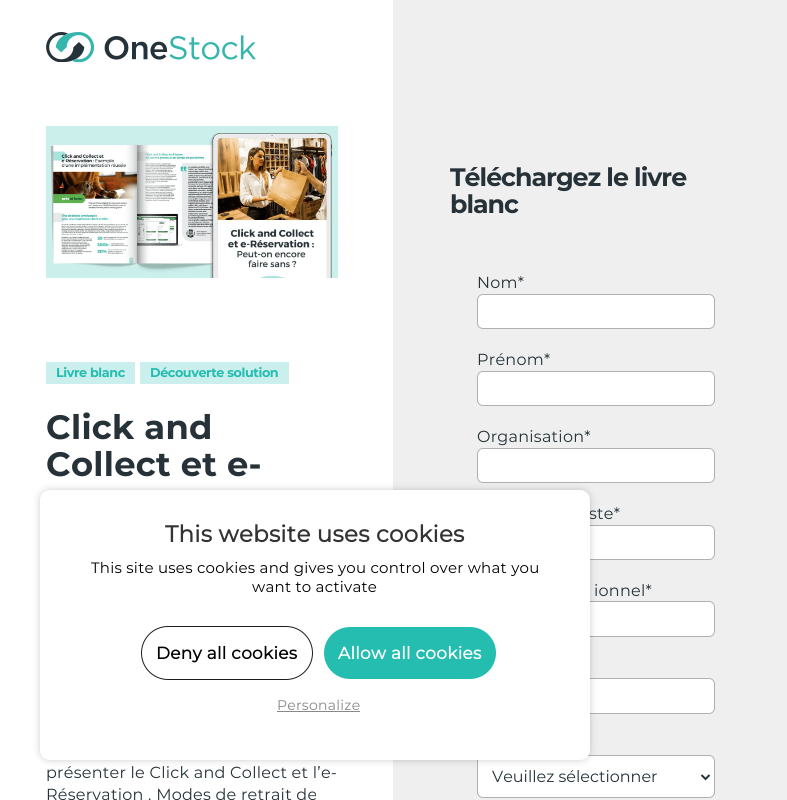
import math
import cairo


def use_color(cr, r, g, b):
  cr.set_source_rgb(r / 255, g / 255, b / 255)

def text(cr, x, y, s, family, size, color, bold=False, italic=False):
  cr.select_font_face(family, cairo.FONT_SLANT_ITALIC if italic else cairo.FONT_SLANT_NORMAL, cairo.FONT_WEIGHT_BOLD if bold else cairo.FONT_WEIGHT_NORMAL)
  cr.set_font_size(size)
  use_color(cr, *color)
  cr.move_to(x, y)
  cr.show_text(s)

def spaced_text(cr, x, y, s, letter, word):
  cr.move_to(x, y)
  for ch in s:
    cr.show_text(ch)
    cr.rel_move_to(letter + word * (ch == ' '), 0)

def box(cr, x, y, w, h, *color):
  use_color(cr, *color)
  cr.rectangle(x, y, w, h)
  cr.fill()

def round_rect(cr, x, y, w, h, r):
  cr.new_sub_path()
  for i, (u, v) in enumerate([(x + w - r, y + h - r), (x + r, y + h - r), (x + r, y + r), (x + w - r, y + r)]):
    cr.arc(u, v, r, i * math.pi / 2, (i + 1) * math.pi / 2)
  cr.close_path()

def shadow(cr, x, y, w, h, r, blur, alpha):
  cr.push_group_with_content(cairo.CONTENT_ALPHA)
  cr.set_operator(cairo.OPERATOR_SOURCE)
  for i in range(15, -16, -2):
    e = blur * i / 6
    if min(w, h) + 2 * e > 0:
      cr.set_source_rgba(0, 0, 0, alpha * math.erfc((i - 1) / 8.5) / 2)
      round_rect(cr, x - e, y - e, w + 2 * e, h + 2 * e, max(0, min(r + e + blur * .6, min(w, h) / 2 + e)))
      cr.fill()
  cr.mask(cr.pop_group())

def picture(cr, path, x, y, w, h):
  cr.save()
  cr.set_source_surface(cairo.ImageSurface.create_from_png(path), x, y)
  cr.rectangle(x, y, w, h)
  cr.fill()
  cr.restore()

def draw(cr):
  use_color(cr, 255, 255, 255)
  cr.paint()
  box(cr, 393, 0, 394, 800, 239, 239, 239)
  picture(cr, "img_01.png", 46, 32, 210, 30)
  picture(cr, "img_02.png", 46, 126, 292, 152)
  box(cr, 46, 362, 89, 22, 202, 239, 236)
  box(cr, 140, 362, 149, 22, 202, 239, 236)
  use_color(cr, 255, 255, 255)
  round_rect(cr, 477.5, 294.5, 237, 34, 5.5)
  cr.fill_preserve()
  use_color(cr, 174, 178, 181)
  cr.set_line_width(1)
  cr.stroke()
  use_color(cr, 255, 255, 255)
  round_rect(cr, 477.5, 371.5, 237, 34, 5.5)
  cr.fill_preserve()
  use_color(cr, 174, 178, 181)
  cr.stroke()
  use_color(cr, 255, 255, 255)
  round_rect(cr, 477.5, 448.5, 237, 34, 5.5)
  cr.fill_preserve()
  use_color(cr, 174, 178, 181)
  cr.stroke()
  use_color(cr, 255, 255, 255)
  round_rect(cr, 477.5, 525.5, 237, 34, 5.5)
  cr.fill_preserve()
  use_color(cr, 174, 178, 181)
  cr.stroke()
  use_color(cr, 255, 255, 255)
  round_rect(cr, 477.5, 601.5, 237, 35, 5.5)
  cr.fill_preserve()
  use_color(cr, 174, 178, 181)
  cr.stroke()
  use_color(cr, 255, 255, 255)
  round_rect(cr, 477.5, 678.5, 237, 35, 5.5)
  cr.fill_preserve()
  use_color(cr, 174, 178, 181)
  cr.stroke()
  use_color(cr, 255, 255, 255)
  round_rect(cr, 477.5, 755.5, 237, 42, 5.5)
  cr.fill_preserve()
  use_color(cr, 174, 178, 181)
  cr.stroke()
  cr.new_path()
  cr.move_to(701.5, 775)
  cr.line_to(705.5, 779)
  cr.line_to(709.5, 775)
  use_color(cr, 38, 50, 57)
  cr.set_line_width(2)
  cr.stroke()
  use_color(cr, 0, 0, 0)
  shadow(cr, 40, 490, 550, 270, 10, 4, 0.2)
  cr.select_font_face("Montserrat", cairo.FONT_SLANT_NORMAL, cairo.FONT_WEIGHT_BOLD)
  cr.set_font_size(12.75)
  use_color(cr, 36, 189, 176)
  spaced_text(cr, 56, 377, "Livre blanc", -0.4, 0)
  spaced_text(cr, 150, 377, "Découverte solution", -0.4, 0)
  cr.set_font_size(33.75)
  use_color(cr, 38, 50, 56)
  spaced_text(cr, 46, 439, "Click and", 0.25, 0)
  spaced_text(cr, 46, 476, "Collect et e-", 0.25, 0)
  cr.select_font_face("Montserrat")
  cr.set_font_size(16)
  spaced_text(cr, 46, 778, "présenter le Click and Collect et l’e-", 0.25, 0)
  spaced_text(cr, 46, 800, "Réservation . Modes de retrait de", 0.25, 0)
  cr.select_font_face("Montserrat", cairo.FONT_SLANT_NORMAL, cairo.FONT_WEIGHT_BOLD)
  cr.set_font_size(25.25)
  spaced_text(cr, 450, 186, "Téléchargez le livre", -1, 0)
  spaced_text(cr, 450, 213, "blanc", -1, 0)
  cr.select_font_face("Montserrat")
  cr.set_font_size(16)
  spaced_text(cr, 477, 288, "Nom*", 0.25, 0)
  spaced_text(cr, 477, 365, "Prénom*", 0.25, 0)
  spaced_text(cr, 477, 442, "Organisation*", 0.25, 0)
  spaced_text(cr, 589, 519, "ste*", 0.25, 0)
  spaced_text(cr, 594, 596, "ionnel*", 0.25, 0)
  text(cr, 492, 782, "Veuillez sélectionner", "Montserrat", 16, (38, 50, 56))
  use_color(cr, 255, 255, 255)
  round_rect(cr, 40, 490, 550, 270, 10)
  cr.fill()
  cr.select_font_face("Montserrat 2", cairo.FONT_SLANT_NORMAL, cairo.FONT_WEIGHT_BOLD)
  cr.set_font_size(23)
  use_color(cr, 51, 51, 51)
  spaced_text(cr, 165, 542, "This website uses cookies", 0.25, 0)
  cr.select_font_face("Montserrat")
  cr.set_font_size(15)
  use_color(cr, 0, 0, 0)
  spaced_text(cr, 91, 573, "This site uses cookies and gives you control over what you", 0.25, 0)
  spaced_text(cr, 252, 592, "want to activate", 0.25, 0)
  round_rect(cr, 141.5, 626.5, 171, 53, 26.5)
  use_color(cr, 29, 28, 28)
  cr.set_line_width(1)
  cr.stroke()
  cr.select_font_face("Montserrat 2", cairo.FONT_SLANT_NORMAL, cairo.FONT_WEIGHT_BOLD)
  cr.set_font_size(17)
  use_color(cr, 0, 0, 0)
  spaced_text(cr, 156, 659, "Deny all cookies", 0.25, 0)
  use_color(cr, 36, 189, 176)
  round_rect(cr, 324, 627, 172, 52, 26)
  cr.fill()
  use_color(cr, 255, 255, 255)
  spaced_text(cr, 338, 659, "Allow all cookies", 0.25, 0)
  cr.select_font_face("Montserrat")
  cr.set_font_size(14)
  use_color(cr, 136, 136, 136)
  spaced_text(cr, 277, 710, "Personalize", 0.25, 0)
  box(cr, 277, 711, 83, 1, 136, 136, 136)


surface = cairo.ImageSurface(cairo.FORMAT_RGB24, 787, 800)
cr = cairo.Context(surface)
options = cairo.FontOptions()
options.set_hint_metrics(cairo.HINT_METRICS_OFF)
options.set_hint_style(cairo.HINT_STYLE_NONE)
cr.set_font_options(options)
cr.set_miter_limit(4)
draw(cr)
surface.write_to_png("out.png")
